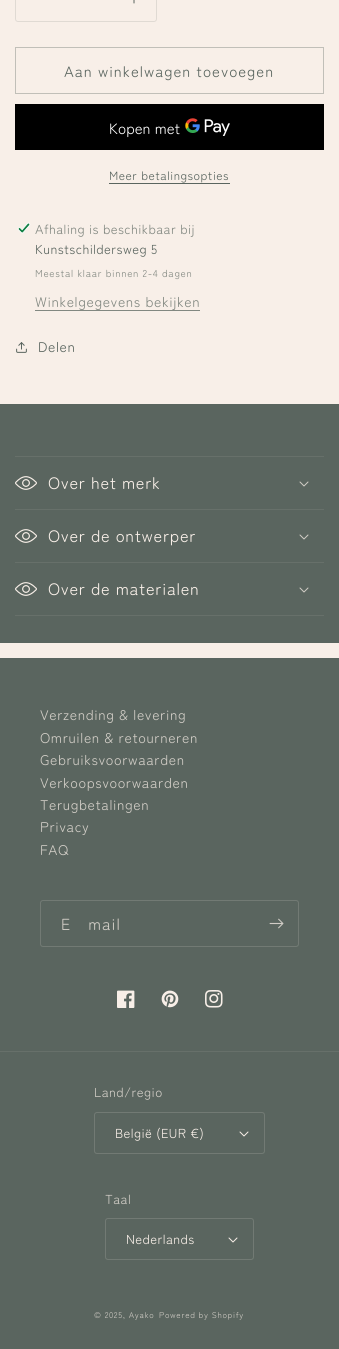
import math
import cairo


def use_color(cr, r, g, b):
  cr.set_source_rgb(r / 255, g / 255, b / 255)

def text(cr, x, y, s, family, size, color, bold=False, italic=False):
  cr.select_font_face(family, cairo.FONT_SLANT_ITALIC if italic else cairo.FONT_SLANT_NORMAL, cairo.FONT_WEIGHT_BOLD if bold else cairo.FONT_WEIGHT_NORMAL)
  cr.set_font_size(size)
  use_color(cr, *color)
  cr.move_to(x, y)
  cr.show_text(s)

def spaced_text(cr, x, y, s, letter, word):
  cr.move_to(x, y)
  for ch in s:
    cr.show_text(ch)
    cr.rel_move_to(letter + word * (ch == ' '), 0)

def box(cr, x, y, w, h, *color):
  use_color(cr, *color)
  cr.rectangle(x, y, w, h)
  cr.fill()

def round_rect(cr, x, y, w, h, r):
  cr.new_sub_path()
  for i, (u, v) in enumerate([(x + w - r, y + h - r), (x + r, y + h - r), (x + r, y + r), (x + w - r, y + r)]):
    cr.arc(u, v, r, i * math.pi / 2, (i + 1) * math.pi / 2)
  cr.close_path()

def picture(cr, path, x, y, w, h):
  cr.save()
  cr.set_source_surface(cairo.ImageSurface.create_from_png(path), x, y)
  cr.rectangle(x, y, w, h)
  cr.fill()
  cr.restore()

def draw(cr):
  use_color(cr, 248, 239, 232)
  cr.paint()
  picture(cr, "img_01.png", 133, 0, 2, 4)
  round_rect(cr, 15.5, -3.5, 141, 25, 2.5)
  cr.set_source_rgba(0.353, 0.396, 0.373, 0.15)
  cr.set_line_width(1)
  cr.stroke()
  cr.rectangle(15.5, 47.5, 308, 46)
  use_color(cr, 193, 191, 184)
  cr.stroke()
  box(cr, 15, 104, 309, 46, 0, 0, 0)
  picture(cr, "img_02.png", 185, 118, 45, 18)
  box(cr, 109, 183, 121, 1, 90, 101, 95)
  picture(cr, "img_03.png", 17, 222, 14, 12)
  box(cr, 35, 310, 165, 1, 130, 136, 129)
  picture(cr, "img_04.png", 16, 342, 11, 11)
  box(cr, 0, 404, 339, 239, 90, 101, 95)
  box(cr, 15, 456, 309, 1, 103, 112, 106)
  box(cr, 15, 509, 309, 1, 103, 112, 106)
  picture(cr, "img_05.png", 15, 476, 22, 14)
  picture(cr, "img_06.png", 299, 481, 10, 6)
  box(cr, 15, 562, 309, 1, 103, 112, 106)
  picture(cr, "img_05.png", 15, 529, 22, 14)
  picture(cr, "img_06.png", 299, 534, 10, 6)
  box(cr, 15, 615, 309, 1, 103, 112, 106)
  picture(cr, "img_05.png", 15, 582, 22, 14)
  picture(cr, "img_06.png", 299, 587, 10, 6)
  box(cr, 0, 658, 339, 691, 90, 101, 95)
  round_rect(cr, 40.5, 900.5, 258, 46, 2.5)
  use_color(cr, 114, 122, 116)
  cr.stroke()
  picture(cr, "img_07.png", 269, 918, 15, 11)
  picture(cr, "img_08.png", 117, 990, 18, 18)
  picture(cr, "img_09.png", 161, 990, 18, 18)
  picture(cr, "img_10.png", 205, 990, 18, 18)
  box(cr, 0, 1051, 339, 1, 103, 112, 106)
  picture(cr, "img_11.png", 239, 1131, 10, 6)
  round_rect(cr, 94.5, 1112.5, 170, 41, 2.5)
  use_color(cr, 114, 122, 116)
  cr.stroke()
  picture(cr, "img_11.png", 228, 1237, 10, 6)
  round_rect(cr, 105.5, 1218.5, 148, 41, 2.5)
  cr.stroke()
  cr.select_font_face("Zen Maru Gothic")
  cr.set_font_size(15)
  use_color(cr, 90, 101, 95)
  spaced_text(cr, 64, 77, "Aan winkelwagen toevoegen", 1, 0)
  text(cr, 109, 134, "Kopen met", "Zen Maru Gothic", 15, (255, 255, 255))
  cr.set_font_size(12)
  use_color(cr, 90, 101, 95)
  spaced_text(cr, 109, 180, "Meer betalingsopties", 0.5, 0)
  cr.set_font_size(13)
  use_color(cr, 130, 136, 129)
  spaced_text(cr, 35, 234, "Afhaling is beschikbaar bij", 0.4, 0)
  use_color(cr, 90, 101, 95)
  spaced_text(cr, 35, 254, "Kunstschildersweg 5", 0.4, 0)
  cr.set_font_size(10)
  use_color(cr, 130, 136, 129)
  spaced_text(cr, 35, 277, "Meestal klaar binnen 2-4 dagen", 0.7, 0)
  cr.set_font_size(14)
  spaced_text(cr, 35, 307, "Winkelgegevens bekijken", 0.6, 0)
  use_color(cr, 90, 101, 95)
  spaced_text(cr, 38, 352, "Delen", 0.6, 0)
  cr.set_font_size(16.5)
  use_color(cr, 248, 239, 232)
  spaced_text(cr, 48, 489, "Over het merk", 0.7, 0)
  spaced_text(cr, 48, 542, "Over de ontwerper", 0.7, 0)
  spaced_text(cr, 48, 595, "Over de materialen", 0.7, 0)
  cr.set_font_size(14)
  use_color(cr, 209, 205, 198)
  spaced_text(cr, 40, 720, "Verzending & levering", 0.6, 0)
  spaced_text(cr, 40, 743, "Omruilen & retourneren", 0.6, 0)
  spaced_text(cr, 40, 765, "Gebruiksvoorwaarden", 0.6, 0)
  spaced_text(cr, 40, 788, "Verkoopsvoorwaarden", 0.6, 0)
  spaced_text(cr, 40, 810, "Terugbetalingen", 0.6, 0)
  spaced_text(cr, 40, 832, "Privacy", 0.6, 0)
  spaced_text(cr, 40, 855, "FAQ", 0.6, 0)
  cr.set_font_size(16)
  spaced_text(cr, 61, 930, "E‑mail", 1, 0)
  cr.set_font_size(13)
  spaced_text(cr, 94, 1097, "Land/regio", 0.4, 0)
  use_color(cr, 248, 239, 232)
  spaced_text(cr, 115, 1138, "België (EUR €)", 0.4, 0)
  use_color(cr, 209, 205, 198)
  spaced_text(cr, 105, 1204, "Taal", 0.4, 0)
  use_color(cr, 248, 239, 232)
  spaced_text(cr, 126, 1244, "Nederlands", 0.4, 0)
  cr.set_font_size(8.25)
  use_color(cr, 209, 205, 198)
  spaced_text(cr, 94, 1318, "© 2025, Ayako", 0.7, 0)
  spaced_text(cr, 159, 1318, "Powered by Shopify", 0.7, 0)


surface = cairo.ImageSurface(cairo.FORMAT_RGB24, 339, 1349)
cr = cairo.Context(surface)
options = cairo.FontOptions()
options.set_hint_metrics(cairo.HINT_METRICS_OFF)
options.set_hint_style(cairo.HINT_STYLE_NONE)
cr.set_font_options(options)
cr.set_miter_limit(4)
draw(cr)
surface.write_to_png("out.png")
